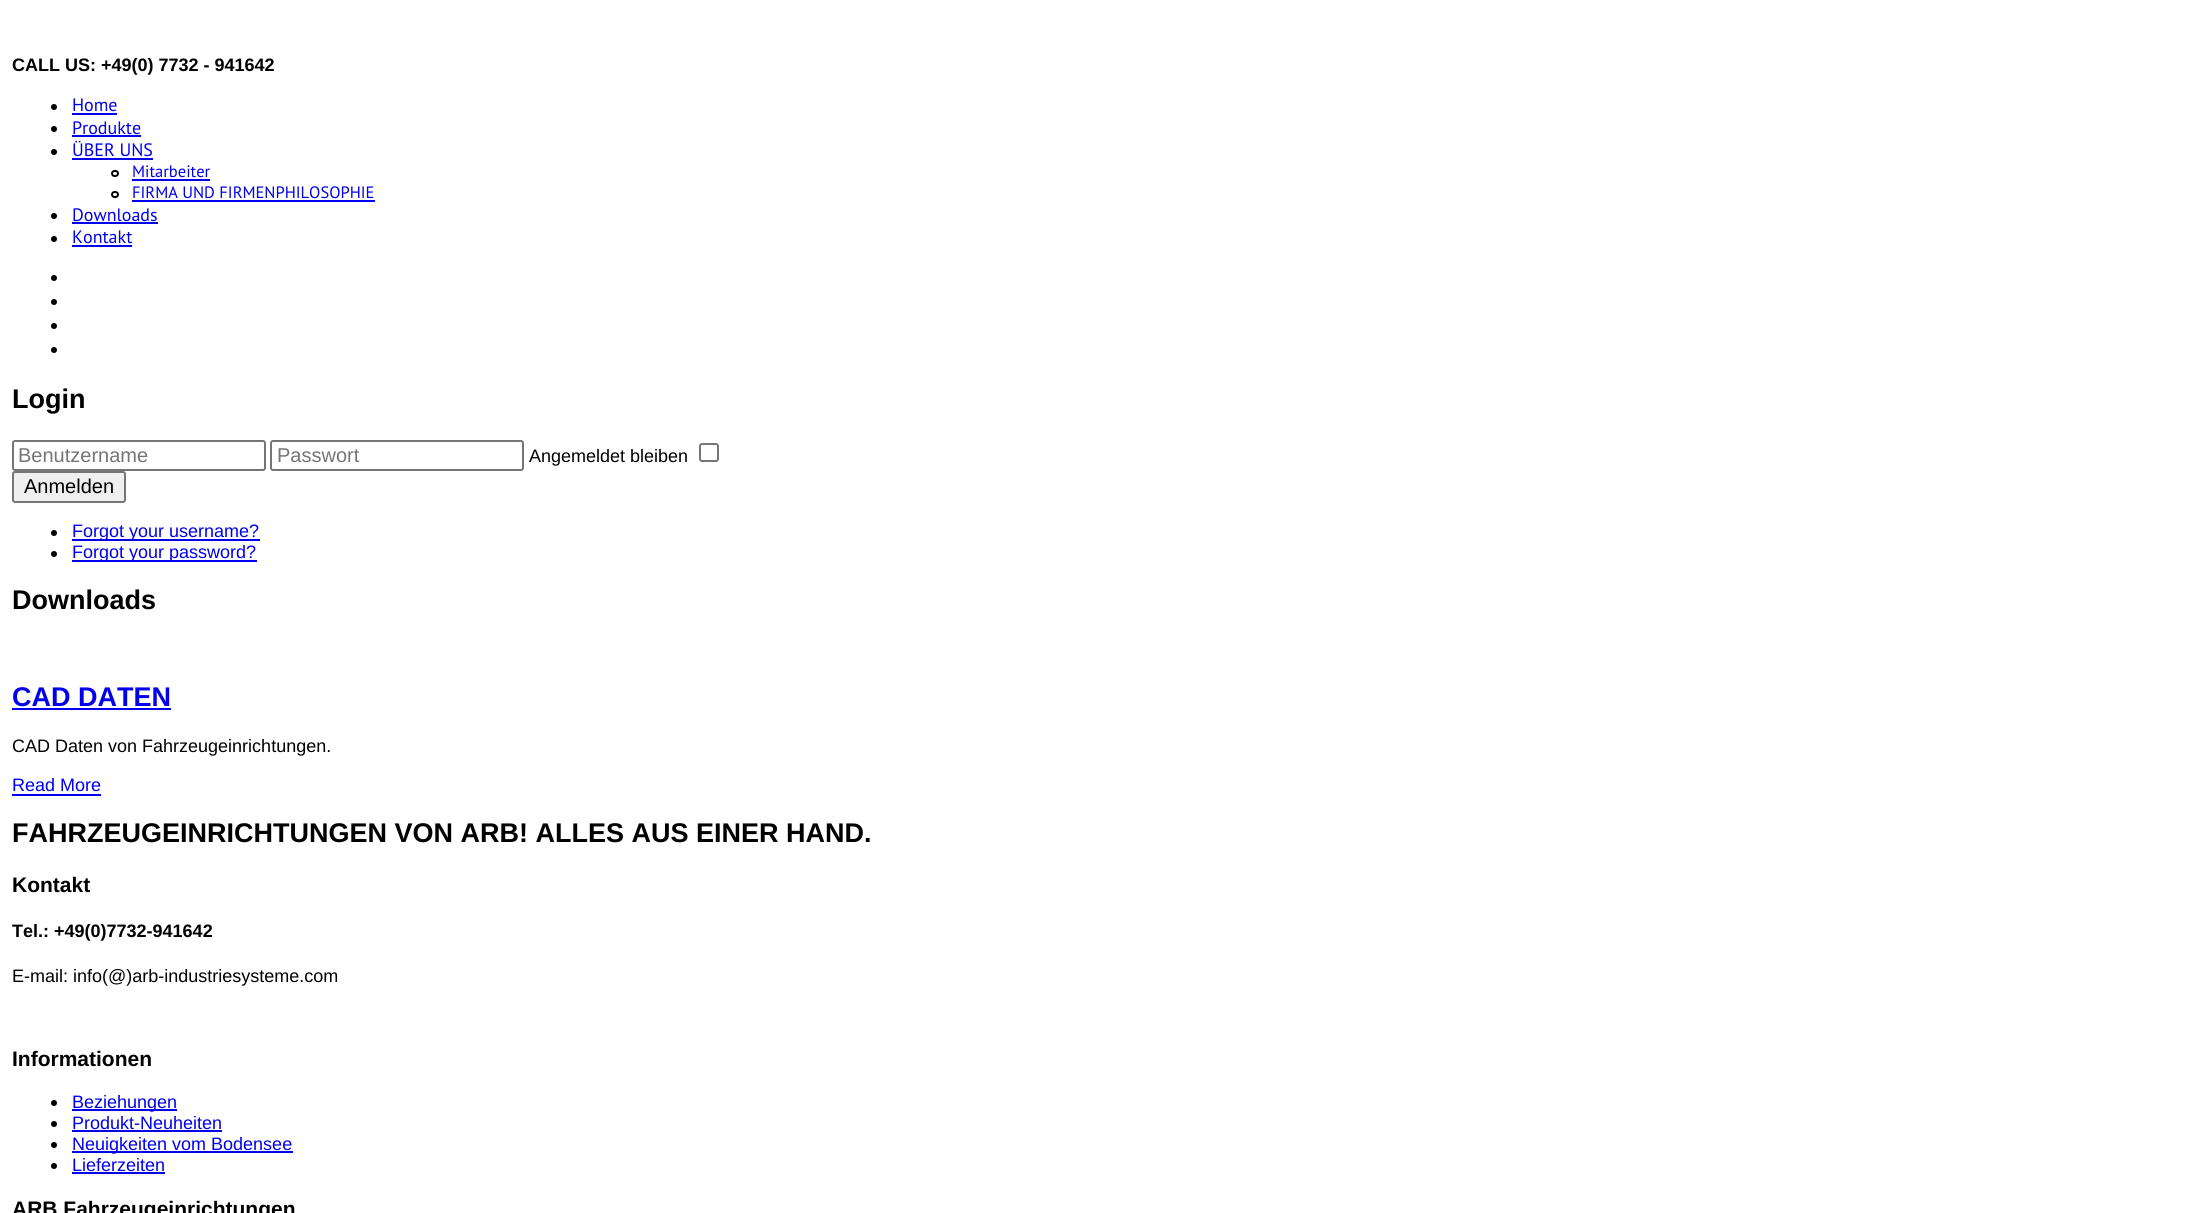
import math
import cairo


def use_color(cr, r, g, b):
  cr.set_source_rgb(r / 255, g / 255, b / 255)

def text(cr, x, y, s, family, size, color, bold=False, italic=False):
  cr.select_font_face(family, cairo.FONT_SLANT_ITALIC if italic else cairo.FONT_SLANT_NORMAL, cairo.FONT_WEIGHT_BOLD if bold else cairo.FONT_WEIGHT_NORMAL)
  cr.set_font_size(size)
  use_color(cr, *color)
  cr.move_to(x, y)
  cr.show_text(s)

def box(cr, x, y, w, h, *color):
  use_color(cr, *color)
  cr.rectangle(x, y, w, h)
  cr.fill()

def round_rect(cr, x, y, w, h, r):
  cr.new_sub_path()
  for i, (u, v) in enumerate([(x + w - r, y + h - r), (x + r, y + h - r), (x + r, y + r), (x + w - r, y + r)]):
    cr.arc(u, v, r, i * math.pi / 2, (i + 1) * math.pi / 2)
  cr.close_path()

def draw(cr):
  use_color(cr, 255, 255, 255)
  cr.paint()
  use_color(cr, 0, 0, 0)
  cr.arc(54, 107, 3, 0, 2 * math.pi)
  cr.fill()
  box(cr, 72, 113, 45, 2, 0, 0, 238)
  use_color(cr, 0, 0, 0)
  cr.arc(54, 129, 3, 0, 2 * math.pi)
  cr.fill()
  box(cr, 72, 135, 69, 2, 0, 0, 238)
  use_color(cr, 0, 0, 0)
  cr.arc(54, 152, 3, 0, 2 * math.pi)
  cr.fill()
  box(cr, 72, 158, 81, 2, 0, 0, 238)
  round_rect(cr, 112, 171, 6, 5, 2.5)
  use_color(cr, 0, 0, 0)
  cr.stroke()
  box(cr, 132, 179, 78, 2, 0, 0, 238)
  round_rect(cr, 112, 192, 6, 5, 2.5)
  use_color(cr, 0, 0, 0)
  cr.stroke()
  box(cr, 132, 200, 243, 2, 0, 0, 238)
  use_color(cr, 0, 0, 0)
  cr.arc(54, 216, 3, 0, 2 * math.pi)
  cr.fill()
  box(cr, 72, 222, 86, 2, 0, 0, 238)
  use_color(cr, 0, 0, 0)
  cr.arc(54, 239, 3, 0, 2 * math.pi)
  cr.fill()
  box(cr, 72, 245, 60, 2, 0, 0, 238)
  use_color(cr, 0, 0, 0)
  cr.arc(54, 278, 3, 0, 2 * math.pi)
  cr.fill()
  cr.arc(54, 302, 3, 0, 2 * math.pi)
  cr.fill()
  cr.arc(54, 326, 3, 0, 2 * math.pi)
  cr.fill()
  cr.arc(54, 350, 3, 0, 2 * math.pi)
  cr.fill()
  round_rect(cr, 13, 441, 252, 29, 2)
  use_color(cr, 118, 118, 118)
  cr.stroke()
  round_rect(cr, 271, 441, 252, 29, 2)
  cr.stroke()
  round_rect(cr, 700, 444, 18, 17, 2)
  cr.stroke()
  use_color(cr, 239, 239, 239)
  round_rect(cr, 13, 472, 112, 30, 2)
  cr.fill_preserve()
  use_color(cr, 118, 118, 118)
  cr.stroke()
  use_color(cr, 0, 0, 0)
  cr.arc(54, 533, 3, 0, 2 * math.pi)
  cr.fill()
  box(cr, 72, 539, 188, 2, 0, 0, 238)
  use_color(cr, 0, 0, 0)
  cr.arc(54, 554, 3, 0, 2 * math.pi)
  cr.fill()
  box(cr, 72, 560, 185, 2, 0, 0, 238)
  box(cr, 12, 708, 159, 2, 0, 0, 238)
  box(cr, 12, 794, 89, 2, 0, 0, 238)
  use_color(cr, 0, 0, 0)
  cr.arc(54, 1103, 3, 0, 2 * math.pi)
  cr.fill()
  box(cr, 72, 1109, 105, 2, 0, 0, 238)
  use_color(cr, 0, 0, 0)
  cr.arc(54, 1124, 3, 0, 2 * math.pi)
  cr.fill()
  box(cr, 72, 1130, 150, 2, 0, 0, 238)
  use_color(cr, 0, 0, 0)
  cr.arc(54, 1145, 3, 0, 2 * math.pi)
  cr.fill()
  box(cr, 72, 1151, 221, 2, 0, 0, 238)
  use_color(cr, 0, 0, 0)
  cr.arc(54, 1166, 3, 0, 2 * math.pi)
  cr.fill()
  box(cr, 72, 1172, 93, 2, 0, 0, 238)
  text(cr, 12, 71, "CALL US: +49(0) 7732 - 941642", "Liberation Sans", 18, (0, 0, 0), bold=True)
  text(cr, 72, 111, "Home", "PT Sans", 18, (0, 0, 238))
  text(cr, 72, 134, "Produkte", "PT Sans", 18, (0, 0, 238))
  text(cr, 72, 156, "ÜBER UNS", "PT Sans", 18, (0, 0, 238))
  text(cr, 132, 177, "Mitarbeiter", "PT Sans", 16.5, (0, 0, 238))
  text(cr, 132, 198, "FIRMA UND FIRMENPHILOSOPHIE", "PT Sans", 16.5, (0, 0, 238))
  text(cr, 72, 221, "Downloads", "PT Sans", 18, (0, 0, 238))
  text(cr, 72, 243, "Kontakt", "PT Sans", 18, (0, 0, 238))
  text(cr, 12, 408, "Login", "Liberation Sans", 27, (0, 0, 0), bold=True)
  text(cr, 18, 462, "Benutzername", "Liberation Sans", 20, (117, 117, 117))
  text(cr, 277, 462, "Passwort", "Liberation Sans", 20, (117, 117, 117))
  text(cr, 529, 462, "Angemeldet bleiben", "Liberation Sans", 18, (0, 0, 0))
  text(cr, 24, 493, "Anmelden", "Liberation Sans", 20, (0, 0, 0))
  text(cr, 72, 537, "Forgot your username?", "Liberation Sans", 18, (0, 0, 238))
  text(cr, 72, 558, "Forgot your password?", "Liberation Sans", 18, (0, 0, 238))
  text(cr, 12, 609, "Downloads", "Liberation Sans", 27, (0, 0, 0), bold=True)
  text(cr, 12, 706, "CAD DATEN", "Liberation Sans", 27, (0, 0, 238), bold=True)
  text(cr, 12, 752, "CAD Daten von Fahrzeugeinrichtungen.", "Liberation Sans", 18, (0, 0, 0))
  text(cr, 12, 791, "Read More", "Liberation Sans", 18, (0, 0, 238))
  text(cr, 12, 842, "FAHRZEUGEINRICHTUNGEN VON ARB! ALLES AUS EINER HAND.", "Liberation Sans", 27, (0, 0, 0), bold=True)
  text(cr, 12, 892, "Kontakt", "Liberation Sans", 21, (0, 0, 0), bold=True)
  text(cr, 12, 937, "Tel.: +49(0)7732-941642", "Liberation Sans", 18, (0, 0, 0), bold=True)
  text(cr, 12, 982, "E-mail: info(@)arb-industriesysteme.com", "Liberation Sans", 18, (0, 0, 0))
  text(cr, 12, 1066, "Informationen", "Liberation Sans", 21, (0, 0, 0), bold=True)
  text(cr, 72, 1108, "Beziehungen", "Liberation Sans", 18, (0, 0, 238))
  text(cr, 72, 1129, "Produkt-Neuheiten", "Liberation Sans", 18, (0, 0, 238))
  text(cr, 72, 1150, "Neuigkeiten vom Bodensee", "Liberation Sans", 18, (0, 0, 238))
  text(cr, 72, 1171, "Lieferzeiten", "Liberation Sans", 18, (0, 0, 238))
  text(cr, 12, 1216, "ARB Fahrzeugeinrichtungen", "Liberation Sans", 21, (0, 0, 0), bold=True)


surface = cairo.ImageSurface(cairo.FORMAT_RGB24, 2187, 1213)
cr = cairo.Context(surface)
options = cairo.FontOptions()
options.set_hint_metrics(cairo.HINT_METRICS_OFF)
options.set_hint_style(cairo.HINT_STYLE_NONE)
cr.set_font_options(options)
cr.set_miter_limit(4)
draw(cr)
surface.write_to_png("out.png")
